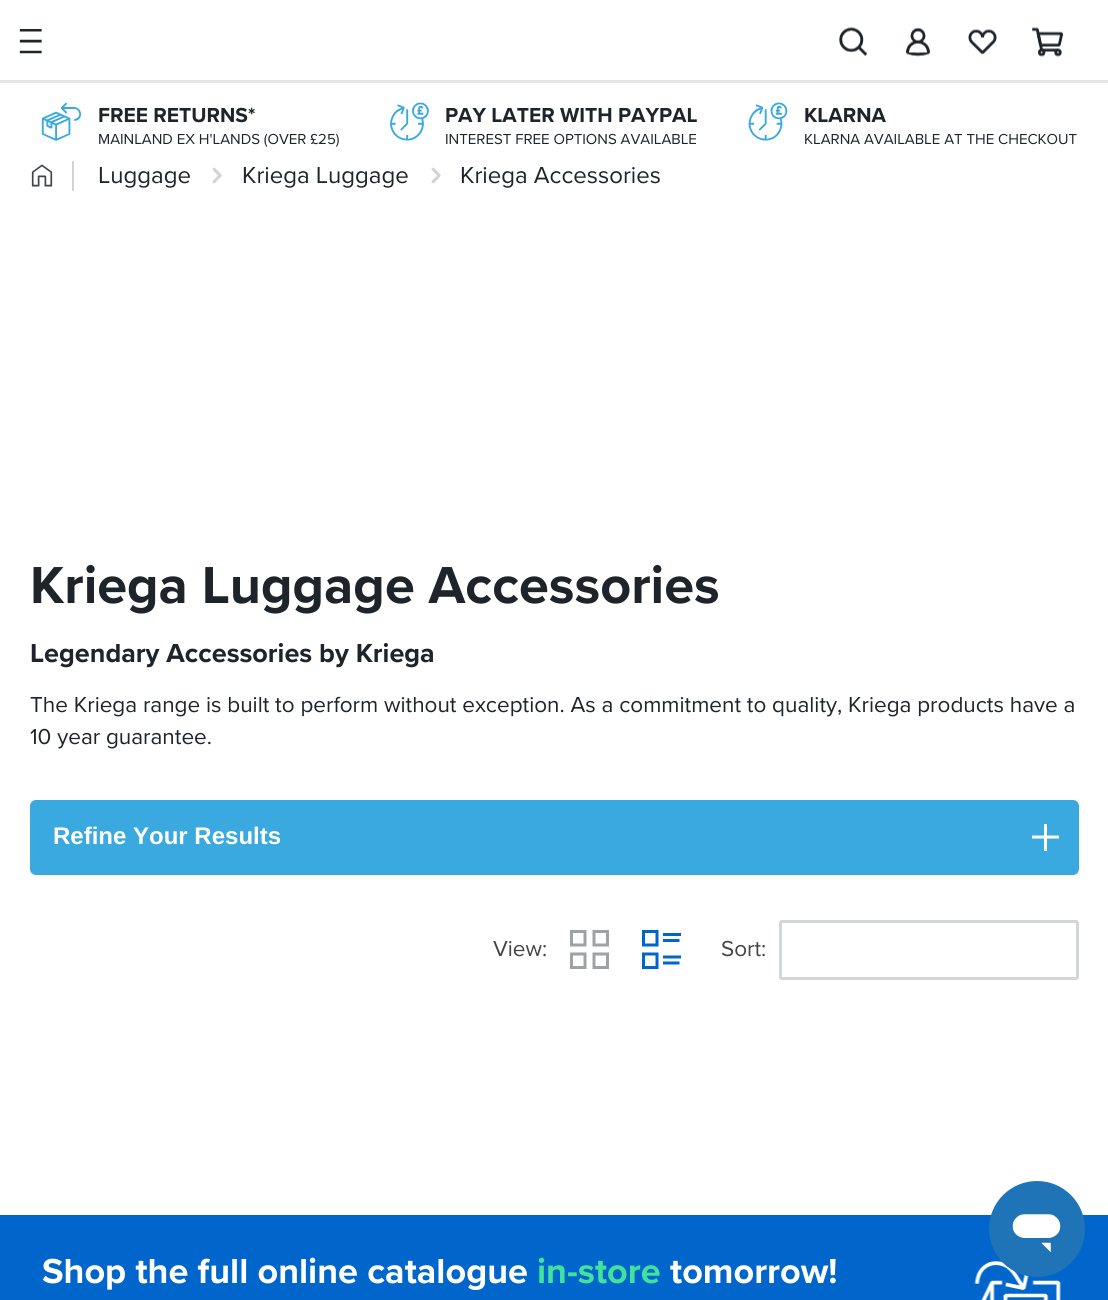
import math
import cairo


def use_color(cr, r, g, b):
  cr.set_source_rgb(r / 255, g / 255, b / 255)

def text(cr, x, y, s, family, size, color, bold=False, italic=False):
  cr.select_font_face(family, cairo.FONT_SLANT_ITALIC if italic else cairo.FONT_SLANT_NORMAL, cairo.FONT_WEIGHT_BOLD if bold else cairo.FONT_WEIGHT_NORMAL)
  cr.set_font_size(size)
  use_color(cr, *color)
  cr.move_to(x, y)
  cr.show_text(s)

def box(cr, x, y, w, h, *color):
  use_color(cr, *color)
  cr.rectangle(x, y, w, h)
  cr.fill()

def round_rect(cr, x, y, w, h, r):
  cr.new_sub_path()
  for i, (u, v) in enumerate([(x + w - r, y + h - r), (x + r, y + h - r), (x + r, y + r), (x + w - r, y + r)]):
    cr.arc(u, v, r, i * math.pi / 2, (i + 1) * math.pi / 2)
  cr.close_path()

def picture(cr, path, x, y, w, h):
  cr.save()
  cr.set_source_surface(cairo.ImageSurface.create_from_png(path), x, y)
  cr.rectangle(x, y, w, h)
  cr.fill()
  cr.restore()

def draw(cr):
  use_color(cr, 255, 255, 255)
  cr.paint()
  box(cr, 0, 80, 1108, 3, 230, 230, 230)
  picture(cr, "img_01.png", 839, 27, 29, 30)
  picture(cr, "img_02.png", 906, 27, 24, 30)
  picture(cr, "img_03.png", 968, 29, 29, 26)
  picture(cr, "img_04.png", 1032, 27, 31, 30)
  picture(cr, "img_05.png", 19, 29, 23, 25)
  picture(cr, "img_06.png", 41, 102, 41, 39)
  picture(cr, "img_07.png", 390, 102, 39, 39)
  picture(cr, "img_08.png", 748, 102, 40, 39)
  picture(cr, "img_09.png", 31, 164, 22, 23)
  box(cr, 72, 161, 2, 30, 212, 212, 212)
  picture(cr, "img_10.png", 212, 167, 10, 17)
  picture(cr, "img_10.png", 431, 167, 10, 17)
  use_color(cr, 57, 169, 224)
  round_rect(cr, 30, 800, 1049, 75, 6)
  cr.fill()
  cr.new_path()
  cr.move_to(1032, 837)
  cr.line_to(1059, 837)
  use_color(cr, 255, 255, 255)
  cr.set_line_width(3)
  cr.set_line_join(cairo.LINE_JOIN_BEVEL)
  cr.stroke()
  box(cr, 1044, 824, 3, 27, 255, 255, 255)
  picture(cr, "img_11.png", 570, 930, 39, 39)
  picture(cr, "img_12.png", 642, 930, 39, 39)
  round_rect(cr, 780.5, 921.5, 297, 57, 1.5)
  use_color(cr, 210, 214, 217)
  cr.set_line_join(cairo.LINE_JOIN_MITER)
  cr.stroke()
  box(cr, 0, 1215, 1108, 85, 0, 102, 204)
  picture(cr, "img_13.png", 974, 1261, 87, 39)
  use_color(cr, 31, 115, 183)
  cr.arc(1037, 1229, 48, 0, 2 * math.pi)
  cr.fill()
  picture(cr, "img_14.png", 1012, 1214, 49, 39)
  text(cr, 98, 122, "FREE RETURNS*", "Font", 21, (30, 36, 41), bold=True)
  text(cr, 98, 144, "MAINLAND EX H'LANDS (OVER £25)", "Font", 15, (30, 36, 41))
  text(cr, 445, 122, "PAY LATER WITH PAYPAL", "Font", 21, (30, 36, 41), bold=True)
  text(cr, 445, 144, "INTEREST FREE OPTIONS AVAILABLE", "Font", 15, (30, 36, 41))
  text(cr, 804, 122, "KLARNA", "Font", 21, (30, 36, 41), bold=True)
  text(cr, 804, 144, "KLARNA AVAILABLE AT THE CHECKOUT", "Font", 15, (30, 36, 41))
  text(cr, 98, 183, "Luggage", "Font", 24, (30, 36, 41))
  text(cr, 242, 183, "Kriega Luggage", "Font", 24, (30, 36, 41))
  text(cr, 460, 183, "Kriega Accessories", "Font", 24, (30, 36, 41))
  text(cr, 30, 603, "Kriega Luggage Accessories", "Font", 53.9, (30, 36, 41), bold=True)
  text(cr, 30, 662, "Legendary Accessories by Kriega", "Font", 27, (30, 36, 41), bold=True)
  text(cr, 30, 712, "The Kriega range is built to perform without exception. As a commitment to quality, Kriega products have a", "Font", 22.5, (30, 36, 41))
  text(cr, 30, 744, "10 year guarantee.", "Font", 22.5, (30, 36, 41))
  text(cr, 53, 844, "Refine Your Results", "Liberation Sans", 24, (255, 255, 255), bold=True)
  text(cr, 493, 956, "View:", "Font", 22.5, (68, 68, 68))
  text(cr, 721, 956, "Sort:", "Font", 22.5, (68, 68, 68))
  text(cr, 42, 1283, "Shop the full online catalogue", "Font", 36, (255, 255, 255), bold=True)
  text(cr, 537, 1283, "in-store", "Font", 36, (64, 226, 156), bold=True)
  text(cr, 670, 1283, "tomorrow!", "Font", 36, (255, 255, 255), bold=True)


surface = cairo.ImageSurface(cairo.FORMAT_RGB24, 1108, 1300)
cr = cairo.Context(surface)
options = cairo.FontOptions()
options.set_hint_metrics(cairo.HINT_METRICS_OFF)
options.set_hint_style(cairo.HINT_STYLE_NONE)
cr.set_font_options(options)
cr.set_miter_limit(4)
draw(cr)
surface.write_to_png("out.png")
